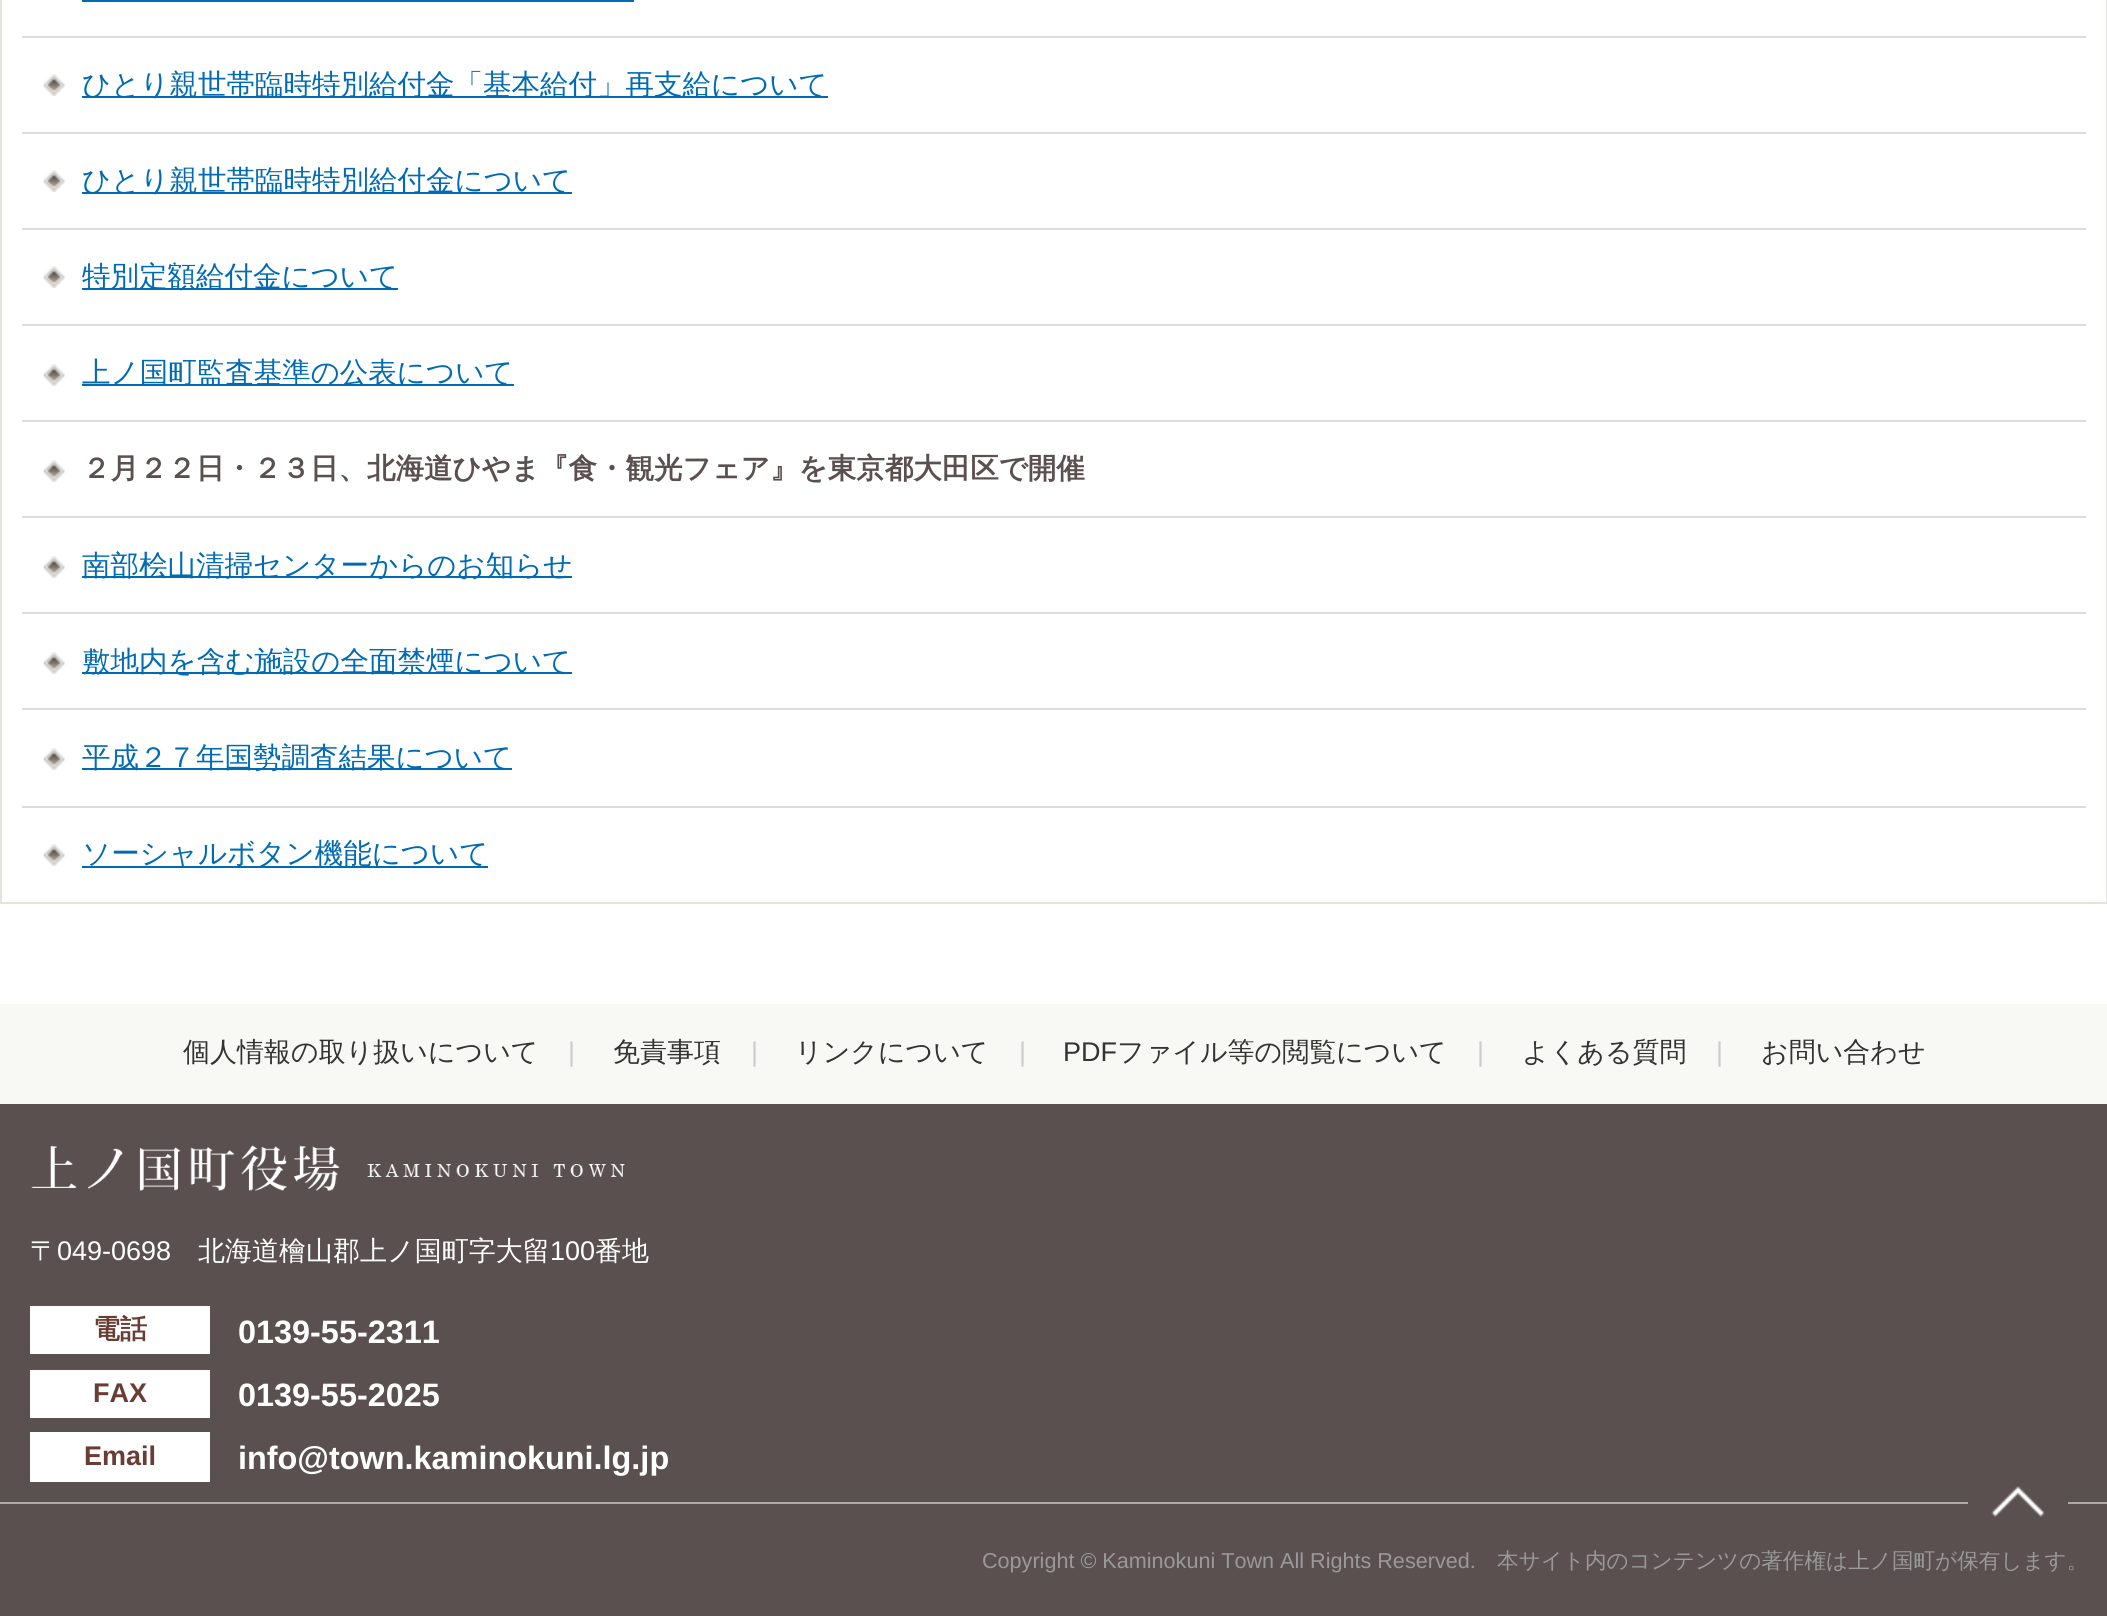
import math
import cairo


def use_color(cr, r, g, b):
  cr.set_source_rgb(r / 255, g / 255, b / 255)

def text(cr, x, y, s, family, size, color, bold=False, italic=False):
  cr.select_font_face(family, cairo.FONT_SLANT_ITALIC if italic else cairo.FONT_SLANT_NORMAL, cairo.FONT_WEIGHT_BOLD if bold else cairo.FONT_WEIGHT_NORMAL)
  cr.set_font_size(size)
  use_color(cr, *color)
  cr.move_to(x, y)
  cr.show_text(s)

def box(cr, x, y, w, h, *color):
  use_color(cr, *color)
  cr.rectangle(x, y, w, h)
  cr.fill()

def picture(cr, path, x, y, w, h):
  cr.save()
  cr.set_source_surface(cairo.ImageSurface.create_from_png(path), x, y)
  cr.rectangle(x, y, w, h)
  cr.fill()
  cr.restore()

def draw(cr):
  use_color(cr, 255, 255, 255)
  cr.paint()
  cr.rectangle(1, -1, 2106, 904)
  use_color(cr, 229, 227, 219)
  cr.stroke()
  box(cr, 22, 36, 2064, 2, 220, 220, 220)
  box(cr, 82, 0, 552, 2, 0, 107, 180)
  picture(cr, "img_01.png", 43, 74, 23, 22)
  box(cr, 22, 132, 2064, 2, 220, 220, 220)
  box(cr, 82, 96, 746, 2, 0, 107, 180)
  picture(cr, "img_01.png", 43, 170, 23, 22)
  box(cr, 22, 228, 2064, 2, 220, 220, 220)
  box(cr, 82, 192, 490, 2, 0, 107, 180)
  picture(cr, "img_01.png", 43, 266, 23, 22)
  box(cr, 22, 324, 2064, 2, 220, 220, 220)
  box(cr, 82, 288, 316, 2, 0, 107, 180)
  picture(cr, "img_01.png", 43, 364, 23, 22)
  box(cr, 22, 420, 2064, 2, 220, 220, 220)
  box(cr, 82, 384, 432, 2, 0, 107, 180)
  picture(cr, "img_01.png", 43, 460, 23, 22)
  box(cr, 22, 516, 2064, 2, 220, 220, 220)
  picture(cr, "img_01.png", 43, 556, 23, 22)
  box(cr, 22, 612, 2064, 2, 220, 220, 220)
  box(cr, 82, 576, 490, 2, 0, 107, 180)
  picture(cr, "img_01.png", 43, 652, 23, 22)
  box(cr, 22, 708, 2064, 2, 220, 220, 220)
  box(cr, 82, 672, 490, 2, 0, 107, 180)
  picture(cr, "img_01.png", 43, 748, 23, 22)
  box(cr, 22, 806, 2064, 2, 220, 220, 220)
  box(cr, 82, 768, 430, 2, 0, 107, 180)
  picture(cr, "img_01.png", 43, 844, 23, 22)
  box(cr, 82, 866, 406, 2, 0, 107, 180)
  box(cr, 0, 1004, 2107, 100, 248, 248, 244)
  box(cr, 0, 1104, 2107, 512, 91, 80, 80)
  picture(cr, "img_02.png", 31, 1145, 594, 47)
  box(cr, 30, 1306, 180, 48, 255, 255, 255)
  box(cr, 30, 1370, 180, 48, 255, 255, 255)
  box(cr, 30, 1432, 180, 50, 255, 255, 255)
  box(cr, 0, 1502, 2107, 2, 173, 168, 168)
  text(cr, 82, 94, "ひとり親世帯臨時特別給付金「基本給付」再支給について", "WenQuanYi Zen Hei Medium", 28.5, (0, 107, 180))
  text(cr, 82, 190, "ひとり親世帯臨時特別給付金について", "WenQuanYi Zen Hei Medium", 28.5, (0, 107, 180))
  text(cr, 82, 286, "特別定額給付金について", "WenQuanYi Zen Hei Medium", 28.5, (0, 107, 180))
  text(cr, 82, 382, "上ノ国町監査基準の公表について", "WenQuanYi Zen Hei Medium", 28.5, (0, 107, 180))
  text(cr, 82, 478, "２月２２日・２３日、北海道ひやま『食・観光フェア』を東京都大田区で開催", "WenQuanYi Zen Hei", 28.5, (91, 80, 80), bold=True)
  text(cr, 82, 575, "南部桧山清掃センターからのお知らせ", "WenQuanYi Zen Hei Medium", 28.5, (0, 107, 180))
  text(cr, 82, 671, "敷地内を含む施設の全面禁煙について", "WenQuanYi Zen Hei Medium", 28.5, (0, 107, 180))
  text(cr, 82, 767, "平成２７年国勢調査結果について", "WenQuanYi Zen Hei Medium", 28.5, (0, 107, 180))
  text(cr, 82, 863, "ソーシャルボタン機能について", "WenQuanYi Zen Hei Medium", 28.5, (0, 107, 180))
  text(cr, 183, 1061, "個人情報の取り扱いについて", "WenQuanYi Zen Hei Medium", 27, (51, 51, 51))
  text(cr, 568, 1061, "|", "Liberation Sans", 27, (204, 204, 204))
  text(cr, 613, 1061, "免責事項", "WenQuanYi Zen Hei Medium", 27, (51, 51, 51))
  text(cr, 751, 1061, "|", "Liberation Sans", 27, (204, 204, 204))
  text(cr, 795, 1061, "リンクについて", "WenQuanYi Zen Hei Medium", 27, (51, 51, 51))
  text(cr, 1019, 1061, "|", "Liberation Sans", 27, (204, 204, 204))
  text(cr, 1063, 1061, "PDF", "Liberation Sans", 27, (51, 51, 51))
  text(cr, 1117, 1061, "ファイル等の閲覧について", "WenQuanYi Zen Hei Medium", 27, (51, 51, 51))
  text(cr, 1477, 1061, "|", "Liberation Sans", 27, (204, 204, 204))
  text(cr, 1522, 1061, "よくある質問", "WenQuanYi Zen Hei Medium", 27, (51, 51, 51))
  text(cr, 1716, 1061, "|", "Liberation Sans", 27, (204, 204, 204))
  text(cr, 1761, 1061, "お問い合わせ", "WenQuanYi Zen Hei Medium", 27, (51, 51, 51))
  text(cr, 30, 1260, "〒", "WenQuanYi Zen Hei Medium", 27, (255, 255, 255))
  text(cr, 57, 1260, "049-0698", "Liberation Sans", 27, (255, 255, 255))
  text(cr, 198, 1260, "北海道檜山郡上ノ国町字大留", "WenQuanYi Zen Hei Medium", 27, (255, 255, 255))
  text(cr, 550, 1260, "100", "Liberation Sans", 27, (255, 255, 255))
  text(cr, 595, 1260, "番地", "WenQuanYi Zen Hei Medium", 27, (255, 255, 255))
  text(cr, 93, 1338, "電話", "WenQuanYi Zen Hei", 27, (105, 60, 52), bold=True)
  text(cr, 238, 1343, "0139-55-2311", "Liberation Sans", 32.4, (255, 255, 255), bold=True)
  text(cr, 93, 1402, "FAX", "Liberation Sans", 27, (105, 60, 52), bold=True)
  text(cr, 238, 1406, "0139-55-2025", "Liberation Sans", 32.4, (255, 255, 255), bold=True)
  text(cr, 84, 1465, "Email", "Liberation Sans", 27, (105, 60, 52), bold=True)
  text(cr, 238, 1469, "info@town.kaminokuni.lg.jp", "Liberation Sans", 32.4, (255, 255, 255), bold=True)
  text(cr, 982, 1568, "Copyright © Kaminokuni Town All Rights Reserved.", "Liberation Sans", 21.6, (153, 153, 153))
  text(cr, 1497, 1568, "本サイト内のコンテンツの著作権は上ノ国町が保有します。", "WenQuanYi Zen Hei Medium", 21.6, (153, 153, 153))
  picture(cr, "img_03.png", 1968, 1486, 100, 66)


surface = cairo.ImageSurface(cairo.FORMAT_RGB24, 2107, 1616)
cr = cairo.Context(surface)
options = cairo.FontOptions()
options.set_hint_metrics(cairo.HINT_METRICS_OFF)
options.set_hint_style(cairo.HINT_STYLE_NONE)
cr.set_font_options(options)
cr.set_miter_limit(4)
draw(cr)
surface.write_to_png("out.png")
